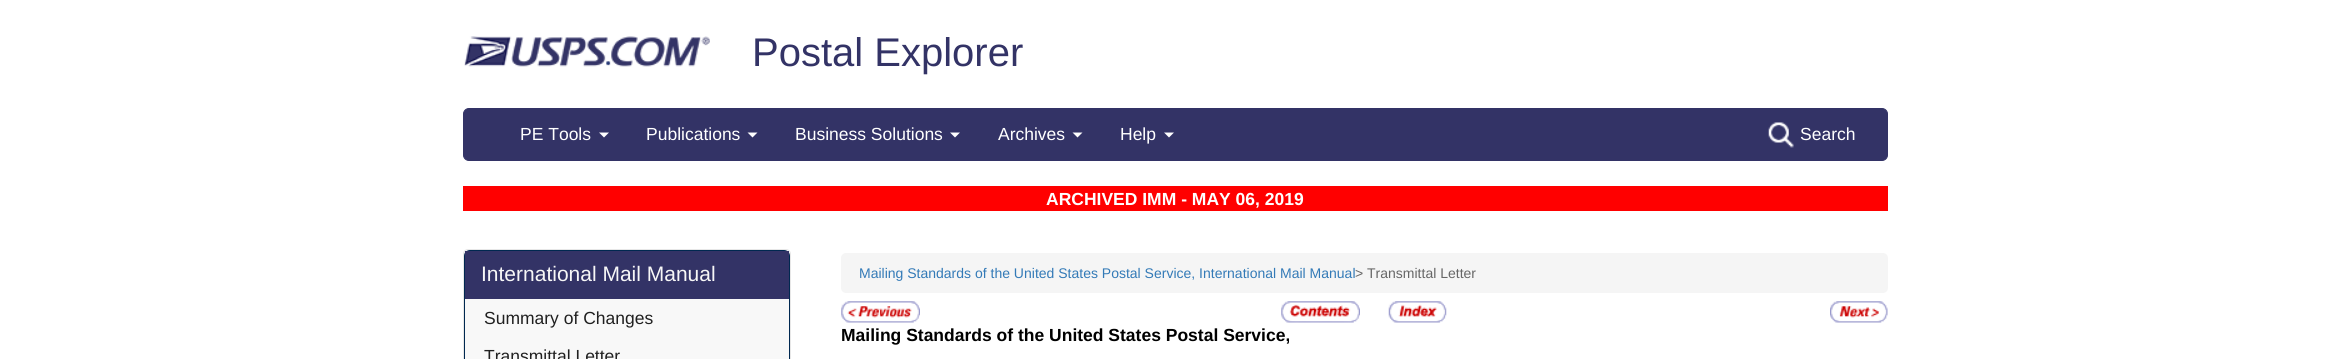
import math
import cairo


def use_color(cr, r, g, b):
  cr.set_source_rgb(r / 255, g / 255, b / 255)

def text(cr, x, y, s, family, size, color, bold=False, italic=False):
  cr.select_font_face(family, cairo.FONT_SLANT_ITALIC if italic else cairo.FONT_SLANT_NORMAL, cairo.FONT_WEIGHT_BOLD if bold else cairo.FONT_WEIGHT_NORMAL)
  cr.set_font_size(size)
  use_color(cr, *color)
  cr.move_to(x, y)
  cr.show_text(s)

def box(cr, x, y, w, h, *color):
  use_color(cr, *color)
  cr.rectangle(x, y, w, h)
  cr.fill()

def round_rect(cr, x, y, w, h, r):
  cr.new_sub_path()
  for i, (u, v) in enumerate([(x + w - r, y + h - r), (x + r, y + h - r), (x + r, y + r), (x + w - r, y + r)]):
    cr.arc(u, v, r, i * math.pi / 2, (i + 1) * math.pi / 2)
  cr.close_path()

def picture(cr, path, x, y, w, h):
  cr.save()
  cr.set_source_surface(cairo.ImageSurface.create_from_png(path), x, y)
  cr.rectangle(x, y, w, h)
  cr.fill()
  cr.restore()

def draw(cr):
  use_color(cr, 255, 255, 255)
  cr.paint()
  picture(cr, "img_01.png", 464, 36, 246, 31)
  use_color(cr, 51, 51, 102)
  round_rect(cr, 463.5, 108.5, 1424, 52, 5.5)
  cr.fill_preserve()
  cr.set_line_width(1)
  cr.stroke()
  use_color(cr, 255, 255, 255)
  cr.new_path()
  cr.move_to(599, 132.5)
  cr.line_to(609, 132.5)
  cr.line_to(604, 137.5)
  cr.close_path()
  cr.fill()
  cr.new_path()
  cr.move_to(747.5, 132.5)
  cr.line_to(757.5, 132.5)
  cr.line_to(752.5, 137.5)
  cr.close_path()
  cr.fill()
  cr.new_path()
  cr.move_to(950, 132.5)
  cr.line_to(960, 132.5)
  cr.line_to(955, 137.5)
  cr.close_path()
  cr.fill()
  cr.new_path()
  cr.move_to(1072.5, 132.5)
  cr.line_to(1082.5, 132.5)
  cr.line_to(1077.5, 137.5)
  cr.close_path()
  cr.fill()
  cr.new_path()
  cr.move_to(1164, 132.5)
  cr.line_to(1174, 132.5)
  cr.line_to(1169, 137.5)
  cr.close_path()
  cr.fill()
  picture(cr, "img_02.png", 1768, 122, 26, 26)
  box(cr, 463, 186, 1425, 25, 255, 0, 0)
  use_color(cr, 248, 248, 248)
  round_rect(cr, 463.5, 249.5, 327, 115, 4.5)
  cr.fill_preserve()
  use_color(cr, 231, 231, 231)
  cr.stroke()
  round_rect(cr, 464.5, 250.5, 325, 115, 5.5)
  use_color(cr, 0, 40, 80)
  cr.stroke()
  box(cr, 465, 251, 324, 48, 51, 51, 102)
  use_color(cr, 245, 245, 245)
  round_rect(cr, 841, 253, 1047, 40, 5)
  cr.fill()
  picture(cr, "img_03.png", 841, 301, 79, 22)
  picture(cr, "img_04.png", 1281, 301, 79, 22)
  picture(cr, "img_05.png", 1388, 301, 59, 22)
  picture(cr, "img_06.png", 1830, 301, 58, 22)
  text(cr, 752, 66, "Postal Explorer", "Liberation Sans", 40, (51, 51, 102))
  text(cr, 520, 140, "PE Tools", "Liberation Sans", 17.5, (255, 255, 255))
  text(cr, 646, 140, "Publications", "Liberation Sans", 17.5, (255, 255, 255))
  text(cr, 795, 140, "Business Solutions", "Liberation Sans", 17.5, (255, 255, 255))
  text(cr, 998, 140, "Archives", "Liberation Sans", 17.5, (255, 255, 255))
  text(cr, 1120, 140, "Help", "Liberation Sans", 17.5, (255, 255, 255))
  text(cr, 1800, 140, "Search", "Liberation Sans", 17.5, (255, 255, 255))
  text(cr, 1046, 205, "ARCHIVED IMM - MAY 06, 2019", "Liberation Sans", 17.5, (255, 255, 255), bold=True)
  text(cr, 481, 281, "International Mail Manual", "Liberation Sans", 21, (247, 247, 247))
  text(cr, 484, 324, "Summary of Changes", "Liberation Sans", 17.5, (32, 32, 32))
  text(cr, 484, 362, "Transmittal Letter", "Liberation Sans", 17.5, (32, 32, 32))
  text(cr, 859, 278, "Mailing Standards of the United States Postal Service, International Mail Manual", "Liberation Sans", 14, (51, 122, 183))
  text(cr, 1355, 278, "> Transmittal Letter", "Liberation Sans", 14, (102, 102, 102))
  text(cr, 841, 341, "Mailing Standards of the United States Postal Service,", "Liberation Sans", 17.5, (0, 0, 0), bold=True)


surface = cairo.ImageSurface(cairo.FORMAT_RGB24, 2349, 359)
cr = cairo.Context(surface)
options = cairo.FontOptions()
options.set_hint_metrics(cairo.HINT_METRICS_OFF)
options.set_hint_style(cairo.HINT_STYLE_NONE)
cr.set_font_options(options)
cr.set_miter_limit(4)
draw(cr)
surface.write_to_png("out.png")
